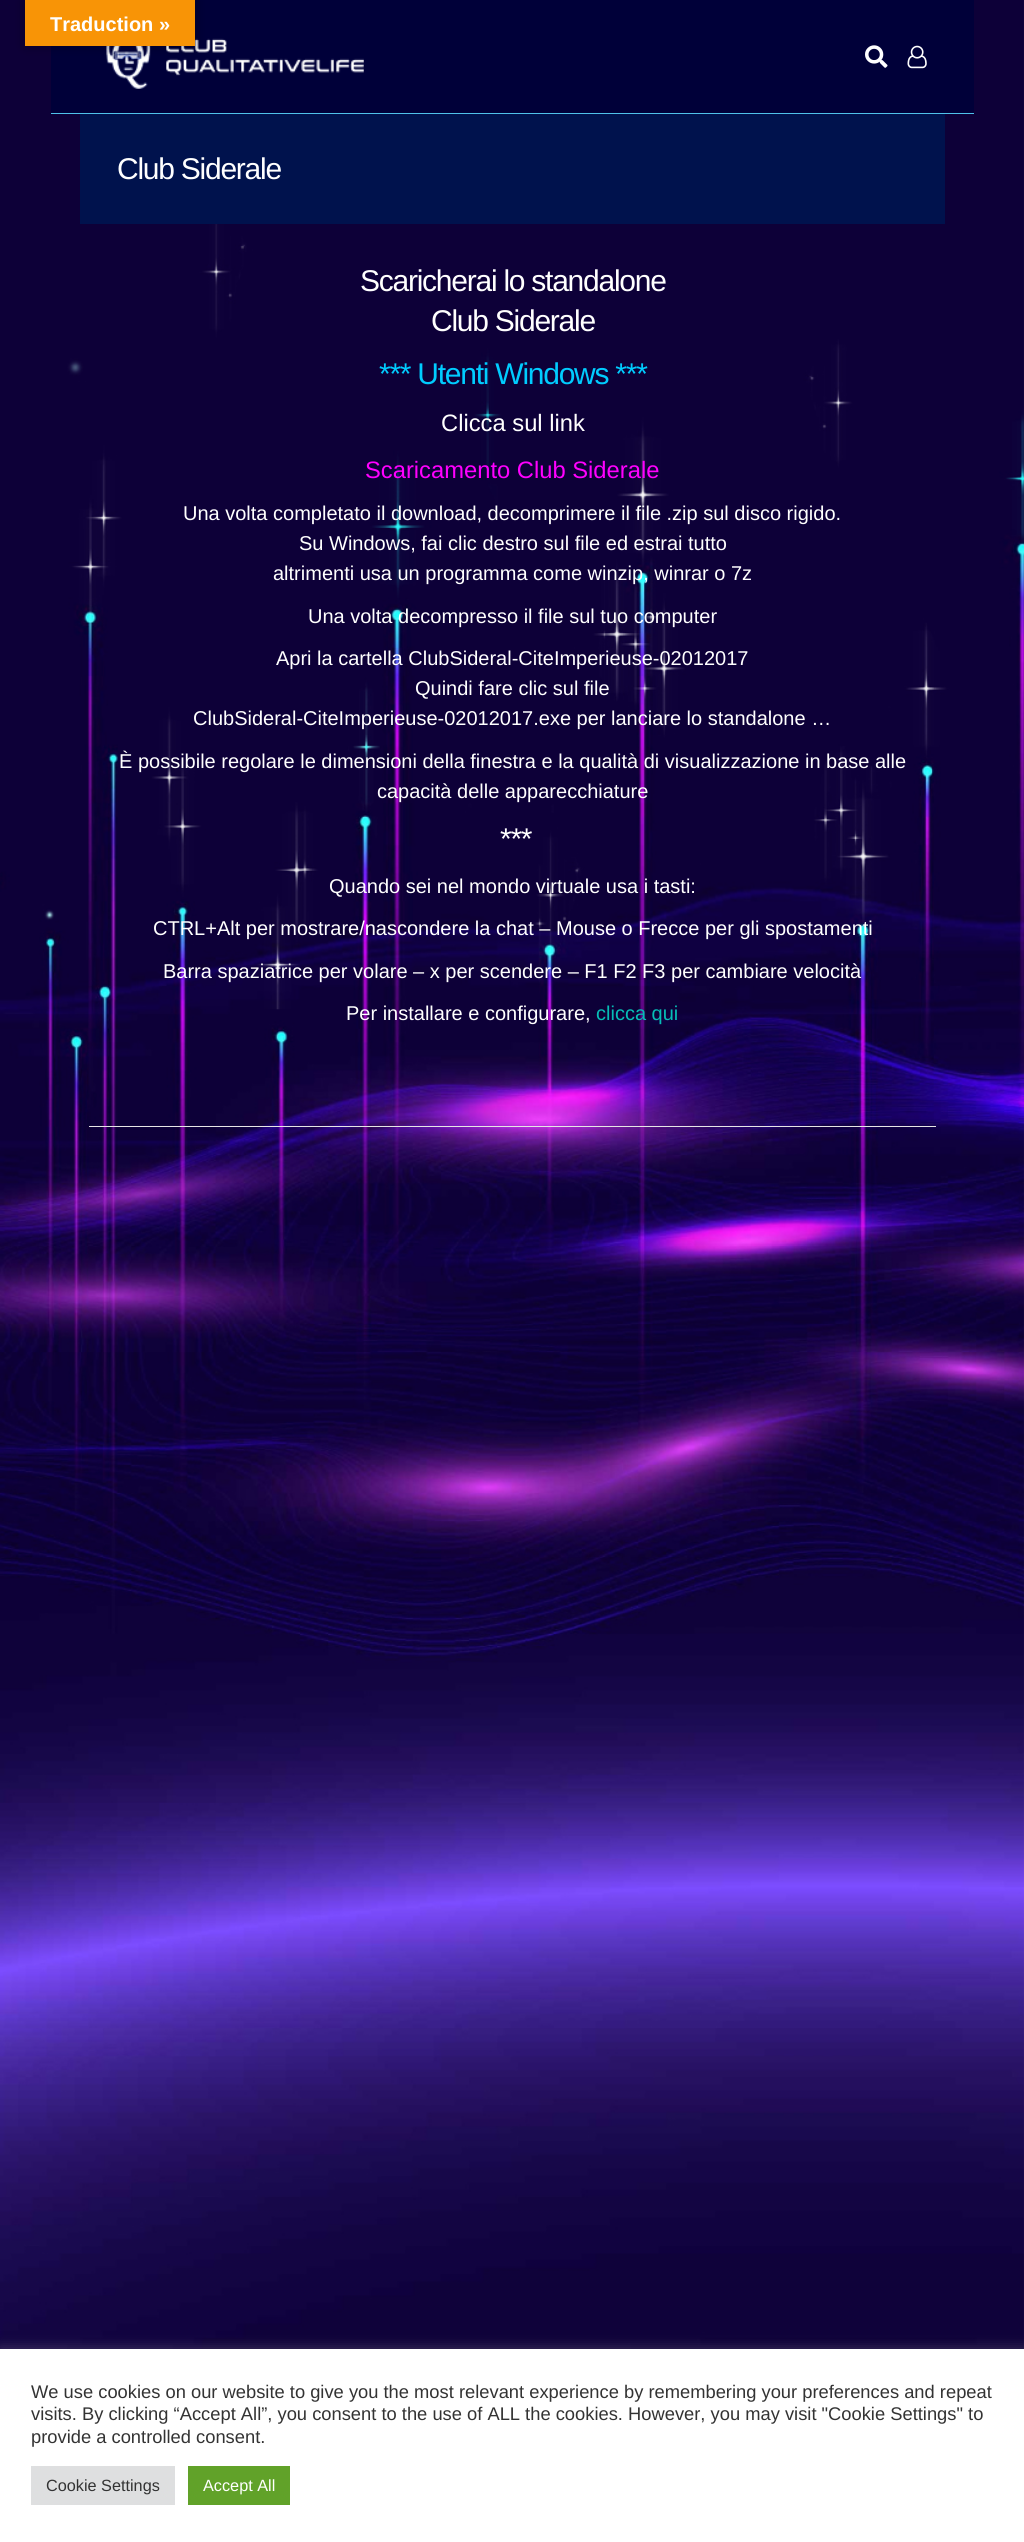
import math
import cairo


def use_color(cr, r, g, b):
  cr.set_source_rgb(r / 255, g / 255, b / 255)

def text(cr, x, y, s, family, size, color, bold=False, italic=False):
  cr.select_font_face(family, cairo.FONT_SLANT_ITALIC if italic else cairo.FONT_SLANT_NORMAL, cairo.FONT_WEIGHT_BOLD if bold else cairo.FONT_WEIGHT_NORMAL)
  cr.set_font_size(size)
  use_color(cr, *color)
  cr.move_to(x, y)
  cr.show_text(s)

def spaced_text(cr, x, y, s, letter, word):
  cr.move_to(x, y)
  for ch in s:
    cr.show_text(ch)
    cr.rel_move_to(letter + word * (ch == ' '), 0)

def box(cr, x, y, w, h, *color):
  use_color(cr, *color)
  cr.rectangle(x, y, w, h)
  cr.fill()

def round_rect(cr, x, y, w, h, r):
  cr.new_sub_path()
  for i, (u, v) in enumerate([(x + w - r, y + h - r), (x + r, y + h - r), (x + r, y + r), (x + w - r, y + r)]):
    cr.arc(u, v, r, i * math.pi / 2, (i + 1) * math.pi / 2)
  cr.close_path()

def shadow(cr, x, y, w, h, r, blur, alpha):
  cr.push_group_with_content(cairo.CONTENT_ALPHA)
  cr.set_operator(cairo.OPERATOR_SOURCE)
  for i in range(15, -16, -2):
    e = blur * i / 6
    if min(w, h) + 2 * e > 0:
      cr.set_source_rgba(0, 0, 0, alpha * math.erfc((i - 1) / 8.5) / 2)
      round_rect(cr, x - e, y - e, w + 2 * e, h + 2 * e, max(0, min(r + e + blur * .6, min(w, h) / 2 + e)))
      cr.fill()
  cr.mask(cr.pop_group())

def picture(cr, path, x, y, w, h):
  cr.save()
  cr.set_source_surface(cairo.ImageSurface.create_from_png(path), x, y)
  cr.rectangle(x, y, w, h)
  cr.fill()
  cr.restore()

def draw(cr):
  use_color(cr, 255, 255, 255)
  cr.paint()
  picture(cr, "img_01.png", 0, 0, 1024, 2349)
  box(cr, 51, 0, 923, 113, 0, 0, 57)
  picture(cr, "img_02.png", 106, 38, 258, 51)
  use_color(cr, 0, 0, 0)
  shadow(cr, 25, 0, 170, 46, 0, 5.5, 0.3)
  box(cr, 25, 0, 170, 46, 248, 148, 6)
  box(cr, 51, 113, 923, 1, 79, 193, 233)
  picture(cr, "img_03.png", 865, 45, 23, 23)
  picture(cr, "img_04.png", 907, 45, 20, 24)
  box(cr, 80, 114, 865, 110, 0, 18, 77)
  box(cr, 89, 1126, 847, 1, 230, 230, 230)
  use_color(cr, 172, 171, 171)
  shadow(cr, 0, 2348, 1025, 193, 0, 6, 0.3)
  box(cr, 0, 2349, 1024, 193, 255, 255, 255)
  box(cr, 31, 2466, 144, 39, 222, 223, 224)
  box(cr, 188, 2466, 102, 39, 97, 162, 41)
  text(cr, 50, 31, "Traduction »", "Liberation Sans", 20, (255, 255, 255), bold=True)
  cr.select_font_face("Liberation Sans")
  cr.set_font_size(30)
  spaced_text(cr, 117, 179, "Club Siderale", -1.25, 0)
  spaced_text(cr, 360, 291, "Scaricherai lo standalone", -1.25, 0)
  spaced_text(cr, 431, 331, "Club Siderale", -1.25, 0)
  use_color(cr, 0, 204, 255)
  spaced_text(cr, 379, 384, "*** Utenti Windows ***", -1.25, 0)
  text(cr, 441, 431, "Clicca sul link", "Liberation Sans", 23.75, (255, 255, 255))
  text(cr, 365, 478, "Scaricamento Club Siderale", "Liberation Sans", 23.75, (255, 0, 255))
  text(cr, 183, 520, "Una volta completato il download, decomprimere il file .zip sul disco rigido.", "Liberation Sans", 20, (255, 255, 255))
  text(cr, 299, 550, "Su Windows, fai clic destro sul file ed estrai tutto", "Liberation Sans", 20, (255, 255, 255))
  text(cr, 273, 580, "altrimenti usa un programma come winzip, winrar o 7z", "Liberation Sans", 20, (255, 255, 255))
  text(cr, 308, 623, "Una volta decompresso il file sul tuo computer", "Liberation Sans", 20, (255, 255, 255))
  text(cr, 276, 665, "Apri la cartella ClubSideral-CiteImperieuse-02012017", "Liberation Sans", 20, (255, 255, 255))
  text(cr, 415, 695, "Quindi fare clic sul file", "Liberation Sans", 20, (255, 255, 255))
  text(cr, 193, 725, "ClubSideral-CiteImperieuse-02012017.exe per lanciare lo standalone …", "Liberation Sans", 20, (255, 255, 255))
  text(cr, 119, 768, "È possibile regolare le dimensioni della finestra e la qualità di visualizzazione in base alle", "Liberation Sans", 20, (255, 255, 255))
  text(cr, 377, 798, "capacità delle apparecchiature", "Liberation Sans", 20, (255, 255, 255))
  cr.set_font_size(30)
  spaced_text(cr, 500, 849, "***", -1.25, 0)
  text(cr, 329, 893, "Quando sei nel mondo virtuale usa i tasti:", "Liberation Sans", 20, (255, 255, 255))
  text(cr, 153, 935, "CTRL+Alt per mostrare/nascondere la chat – Mouse o Frecce per gli spostamenti", "Liberation Sans", 20, (255, 255, 255))
  text(cr, 163, 978, "Barra spaziatrice per volare – x per scendere – F1 F2 F3 per cambiare velocità", "Liberation Sans", 20, (255, 255, 255))
  text(cr, 346, 1020, "Per installare e configurare,", "Liberation Sans", 20, (255, 255, 255))
  text(cr, 596, 1020, "clicca qui", "Liberation Sans", 20, (6, 190, 182))
  text(cr, 31, 2398, "We use cookies on our website to give you the most relevant experience by remembering your preferences and repeat", "Liberation Sans", 18.33, (51, 51, 51))
  text(cr, 31, 2420, "visits. By clicking “Accept All”, you consent to the use of ALL the cookies. However, you may visit \"Cookie Settings\" to", "Liberation Sans", 18.33, (51, 51, 51))
  text(cr, 31, 2443, "provide a controlled consent.", "Liberation Sans", 18.33, (51, 51, 51))
  text(cr, 46, 2491, "Cookie Settings", "Liberation Sans", 16.25, (51, 51, 51))
  text(cr, 203, 2491, "Accept All", "Liberation Sans", 16.25, (255, 255, 255))


surface = cairo.ImageSurface(cairo.FORMAT_RGB24, 1024, 2542)
cr = cairo.Context(surface)
options = cairo.FontOptions()
options.set_hint_metrics(cairo.HINT_METRICS_OFF)
options.set_hint_style(cairo.HINT_STYLE_NONE)
cr.set_font_options(options)
cr.set_miter_limit(4)
draw(cr)
surface.write_to_png("out.png")
